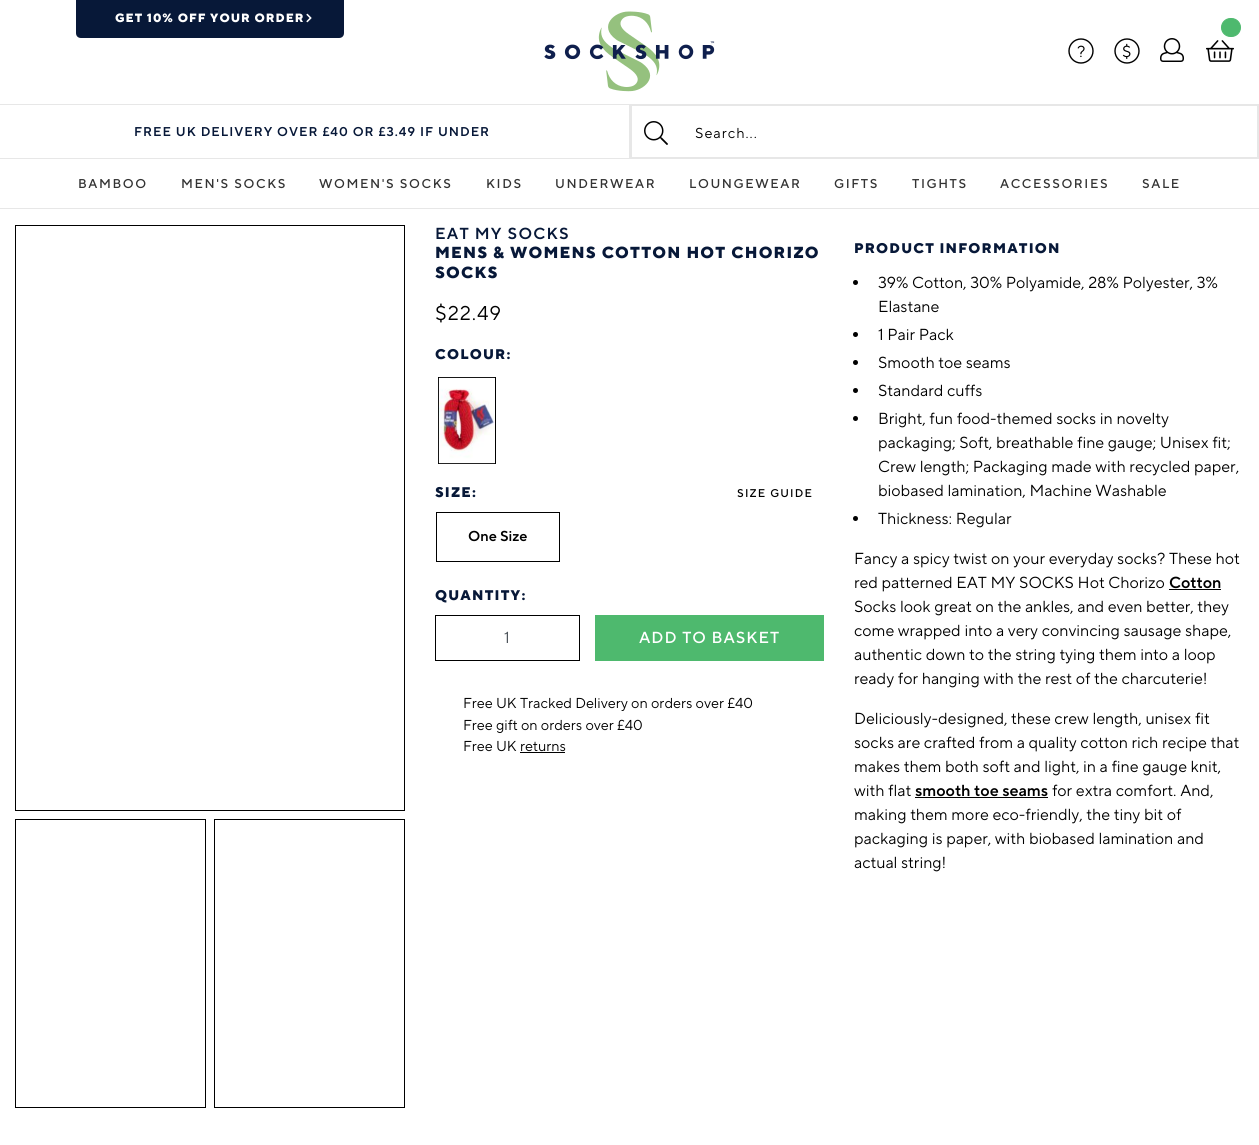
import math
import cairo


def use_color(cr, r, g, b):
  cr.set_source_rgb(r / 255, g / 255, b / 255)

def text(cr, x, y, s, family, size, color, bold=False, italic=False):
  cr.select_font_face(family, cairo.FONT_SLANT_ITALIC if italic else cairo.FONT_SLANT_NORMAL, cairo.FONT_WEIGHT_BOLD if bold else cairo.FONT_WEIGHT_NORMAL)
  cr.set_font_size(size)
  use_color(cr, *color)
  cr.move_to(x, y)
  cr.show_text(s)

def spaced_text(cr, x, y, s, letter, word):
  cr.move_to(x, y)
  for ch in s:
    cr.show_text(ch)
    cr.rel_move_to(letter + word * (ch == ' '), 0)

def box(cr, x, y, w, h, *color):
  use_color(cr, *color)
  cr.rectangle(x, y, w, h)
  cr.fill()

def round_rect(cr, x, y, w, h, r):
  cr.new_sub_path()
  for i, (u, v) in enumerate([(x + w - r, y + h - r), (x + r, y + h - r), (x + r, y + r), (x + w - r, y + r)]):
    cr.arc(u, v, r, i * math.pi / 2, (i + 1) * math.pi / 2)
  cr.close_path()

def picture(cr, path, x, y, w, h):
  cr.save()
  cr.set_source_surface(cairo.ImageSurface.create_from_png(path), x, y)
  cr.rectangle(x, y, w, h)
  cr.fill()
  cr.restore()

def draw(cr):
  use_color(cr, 255, 255, 255)
  cr.paint()
  use_color(cr, 7, 24, 56)
  cr.new_path()
  cr.move_to(76, 0)
  cr.line_to(344, 0)
  cr.line_to(344, 33)
  cr.curve_to(344, 36, 342, 38, 339, 38)
  cr.line_to(81, 38)
  cr.curve_to(78, 38, 76, 36, 76, 33)
  cr.close_path()
  cr.fill()
  picture(cr, "img_01.png", 306, 13, 6, 10)
  picture(cr, "img_02.png", 544, 11, 171, 81)
  cr.arc(1081, 51, 12, 0, 2 * math.pi)
  use_color(cr, 0, 0, 0)
  cr.set_line_width(1.4)
  cr.stroke()
  cr.arc(1127, 51, 12, 0, 2 * math.pi)
  cr.stroke()
  picture(cr, "img_03.png", 1160, 38, 24, 24)
  use_color(cr, 78, 185, 110)
  round_rect(cr, 1221.5, 18.5, 19, 18, 9)
  cr.fill_preserve()
  cr.set_line_width(1)
  cr.stroke()
  picture(cr, "img_04.png", 1206, 40, 28, 22)
  box(cr, 0, 104, 630, 1, 231, 231, 231)
  box(cr, 629, 104, 1, 55, 231, 231, 231)
  box(cr, 0, 158, 630, 1, 231, 231, 231)
  cr.rectangle(631, 105, 627, 53)
  cr.set_line_width(2)
  cr.stroke()
  picture(cr, "img_05.png", 644, 121, 24, 24)
  box(cr, 0, 208, 1259, 1, 231, 231, 231)
  cr.rectangle(15.5, 225.5, 389, 585)
  use_color(cr, 0, 0, 0)
  cr.set_line_width(1)
  cr.stroke()
  cr.rectangle(15.5, 819.5, 190, 288)
  cr.stroke()
  cr.rectangle(214.5, 819.5, 190, 288)
  cr.stroke()
  cr.rectangle(438.5, 377.5, 57, 86)
  cr.stroke()
  picture(cr, "img_06.png", 438, 377, 57, 87)
  cr.rectangle(436.5, 512.5, 123, 49)
  cr.stroke()
  cr.rectangle(435.5, 615.5, 33, 45)
  cr.stroke()
  cr.rectangle(546.5, 615.5, 33, 45)
  cr.stroke()
  box(cr, 468, 616, 79, 44, 255, 255, 255)
  box(cr, 468, 615, 79, 1, 0, 0, 0)
  box(cr, 468, 660, 79, 1, 0, 0, 0)
  box(cr, 595, 615, 229, 46, 78, 185, 110)
  box(cr, 520, 752, 45, 1, 0, 0, 0)
  cr.arc(855.5, 282.5, 2.5, 0, 2 * math.pi)
  cr.fill()
  cr.arc(855.5, 334.5, 2.5, 0, 2 * math.pi)
  cr.fill()
  cr.arc(855.5, 362.5, 2.5, 0, 2 * math.pi)
  cr.fill()
  cr.arc(855.5, 390.5, 2.5, 0, 2 * math.pi)
  cr.fill()
  cr.arc(855.5, 418.5, 2.5, 0, 2 * math.pi)
  cr.fill()
  cr.arc(855.5, 518.5, 2.5, 0, 2 * math.pi)
  cr.fill()
  box(cr, 1169, 589, 52, 1, 0, 0, 0)
  box(cr, 915, 797, 133, 1, 0, 0, 0)
  cr.select_font_face("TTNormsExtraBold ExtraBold")
  cr.set_font_size(12)
  use_color(cr, 255, 255, 255)
  spaced_text(cr, 115, 22, "GET 10% OFF YOUR ORDER", 1, 0)
  text(cr, 1077, 57, "?", "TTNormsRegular", 16, (0, 0, 0))
  text(cr, 1122, 57, "$", "TTNormsRegular", 16, (0, 0, 0))
  cr.select_font_face("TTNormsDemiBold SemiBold")
  cr.set_font_size(12.8)
  use_color(cr, 7, 24, 56)
  spaced_text(cr, 134, 136, "FREE UK DELIVERY OVER £40 OR £3.49 IF UNDER", 1, 0)
  cr.select_font_face("TTNormsRegular")
  cr.set_font_size(14.4)
  use_color(cr, 0, 0, 0)
  spaced_text(cr, 695, 138, "Search...", 1, 0)
  cr.select_font_face("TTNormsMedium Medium")
  cr.set_font_size(12.8)
  use_color(cr, 51, 51, 51)
  spaced_text(cr, 78, 188, "BAMBOO", 1.6, 0)
  spaced_text(cr, 181, 188, "MEN'S SOCKS", 1.6, 0)
  spaced_text(cr, 319, 188, "WOMEN'S SOCKS", 1.6, 0)
  spaced_text(cr, 486, 188, "KIDS", 1.6, 0)
  spaced_text(cr, 555, 188, "UNDERWEAR", 1.6, 0)
  spaced_text(cr, 689, 188, "LOUNGEWEAR", 1.6, 0)
  spaced_text(cr, 834, 188, "GIFTS", 1.6, 0)
  spaced_text(cr, 912, 188, "TIGHTS", 1.6, 0)
  spaced_text(cr, 1000, 188, "ACCESSORIES", 1.6, 0)
  spaced_text(cr, 1142, 188, "SALE", 1.6, 0)
  cr.select_font_face("TTNormsDemiBold SemiBold")
  cr.set_font_size(16)
  use_color(cr, 7, 24, 56)
  spaced_text(cr, 435, 239, "EAT MY SOCKS", 1.2, 0)
  cr.select_font_face("TTNormsExtraBold ExtraBold")
  spaced_text(cr, 435, 258, "MENS & WOMENS COTTON HOT CHORIZO", 1.2, 0)
  spaced_text(cr, 435, 278, "SOCKS", 1.2, 0)
  cr.select_font_face("TTNormsRegular")
  cr.set_font_size(20)
  use_color(cr, 0, 0, 0)
  spaced_text(cr, 435, 320, "$22.49", 1, 0)
  cr.select_font_face("TTNormsExtraBold ExtraBold")
  cr.set_font_size(14)
  use_color(cr, 7, 24, 56)
  spaced_text(cr, 435, 359, "COLOUR:", 1.2, 0)
  spaced_text(cr, 435, 497, "SIZE:", 1.2, 0)
  cr.select_font_face("TTNormsMedium Medium")
  cr.set_font_size(11.25)
  use_color(cr, 0, 0, 0)
  spaced_text(cr, 737, 497, "SIZE GUIDE", 1.2, 0)
  text(cr, 468, 541, "One Size", "TTNormsDemiBold SemiBold", 14.4, (0, 0, 0))
  cr.select_font_face("TTNormsExtraBold ExtraBold")
  cr.set_font_size(14)
  use_color(cr, 7, 24, 56)
  spaced_text(cr, 435, 600, "QUANTITY:", 1.2, 0)
  text(cr, 504, 643, "1", "TTNormsRegular", 16, (73, 80, 87))
  cr.select_font_face("TTNormsMedium Medium")
  use_color(cr, 255, 255, 255)
  spaced_text(cr, 639, 643, "ADD TO BASKET", 1, 0)
  text(cr, 463, 708, "Free UK Tracked Delivery on orders over £40", "TTNormsRegular", 14.4, (0, 0, 0))
  text(cr, 463, 730, "Free gift on orders over £40", "TTNormsRegular", 14.4, (0, 0, 0))
  text(cr, 463, 751, "Free UK returns", "TTNormsRegular", 14.4, (0, 0, 0))
  cr.select_font_face("TTNormsExtraBold ExtraBold")
  cr.set_font_size(14)
  use_color(cr, 7, 24, 56)
  spaced_text(cr, 854, 253, "PRODUCT INFORMATION", 1.2, 0)
  text(cr, 878, 288, "39% Cotton, 30% Polyamide, 28% Polyester, 3%", "TTNormsRegular", 16, (0, 0, 0))
  text(cr, 878, 312, "Elastane", "TTNormsRegular", 16, (0, 0, 0))
  text(cr, 878, 340, "1 Pair Pack", "TTNormsRegular", 16, (0, 0, 0))
  text(cr, 878, 368, "Smooth toe seams", "TTNormsRegular", 16, (0, 0, 0))
  text(cr, 878, 396, "Standard cuffs", "TTNormsRegular", 16, (0, 0, 0))
  text(cr, 878, 424, "Bright, fun food-themed socks in novelty", "TTNormsRegular", 16, (0, 0, 0))
  text(cr, 878, 448, "packaging; Soft, breathable fine gauge; Unisex fit;", "TTNormsRegular", 16, (0, 0, 0))
  text(cr, 878, 472, "Crew length; Packaging made with recycled paper,", "TTNormsRegular", 16, (0, 0, 0))
  text(cr, 878, 496, "biobased lamination, Machine Washable", "TTNormsRegular", 16, (0, 0, 0))
  text(cr, 878, 524, "Thickness: Regular", "TTNormsRegular", 16, (0, 0, 0))
  text(cr, 854, 564, "Fancy a spicy twist on your everyday socks? These hot", "TTNormsRegular", 16, (0, 0, 0))
  text(cr, 854, 588, "red patterned EAT MY SOCKS Hot Chorizo", "TTNormsRegular", 16, (0, 0, 0))
  text(cr, 1169, 588, "Cotton", "TTNormsDemiBold SemiBold", 16, (0, 0, 0))
  text(cr, 854, 612, "Socks look great on the ankles, and even better, they", "TTNormsRegular", 16, (0, 0, 0))
  text(cr, 854, 636, "come wrapped into a very convincing sausage shape,", "TTNormsRegular", 16, (0, 0, 0))
  text(cr, 854, 660, "authentic down to the string tying them into a loop", "TTNormsRegular", 16, (0, 0, 0))
  text(cr, 854, 684, "ready for hanging with the rest of the charcuterie!", "TTNormsRegular", 16, (0, 0, 0))
  text(cr, 854, 724, "Deliciously-designed, these crew length, unisex fit", "TTNormsRegular", 16, (0, 0, 0))
  text(cr, 854, 748, "socks are crafted from a quality cotton rich recipe that", "TTNormsRegular", 16, (0, 0, 0))
  text(cr, 854, 772, "makes them both soft and light, in a fine gauge knit,", "TTNormsRegular", 16, (0, 0, 0))
  text(cr, 854, 796, "with flat", "TTNormsRegular", 16, (0, 0, 0))
  text(cr, 915, 796, "smooth toe seams", "TTNormsDemiBold SemiBold", 16, (0, 0, 0))
  text(cr, 1052, 796, "for extra comfort. And,", "TTNormsRegular", 16, (0, 0, 0))
  text(cr, 854, 820, "making them more eco-friendly, the tiny bit of", "TTNormsRegular", 16, (0, 0, 0))
  text(cr, 854, 844, "packaging is paper, with biobased lamination and", "TTNormsRegular", 16, (0, 0, 0))
  text(cr, 854, 868, "actual string!", "TTNormsRegular", 16, (0, 0, 0))


surface = cairo.ImageSurface(cairo.FORMAT_RGB24, 1259, 1145)
cr = cairo.Context(surface)
options = cairo.FontOptions()
options.set_hint_metrics(cairo.HINT_METRICS_OFF)
options.set_hint_style(cairo.HINT_STYLE_NONE)
cr.set_font_options(options)
cr.set_miter_limit(4)
draw(cr)
surface.write_to_png("out.png")
